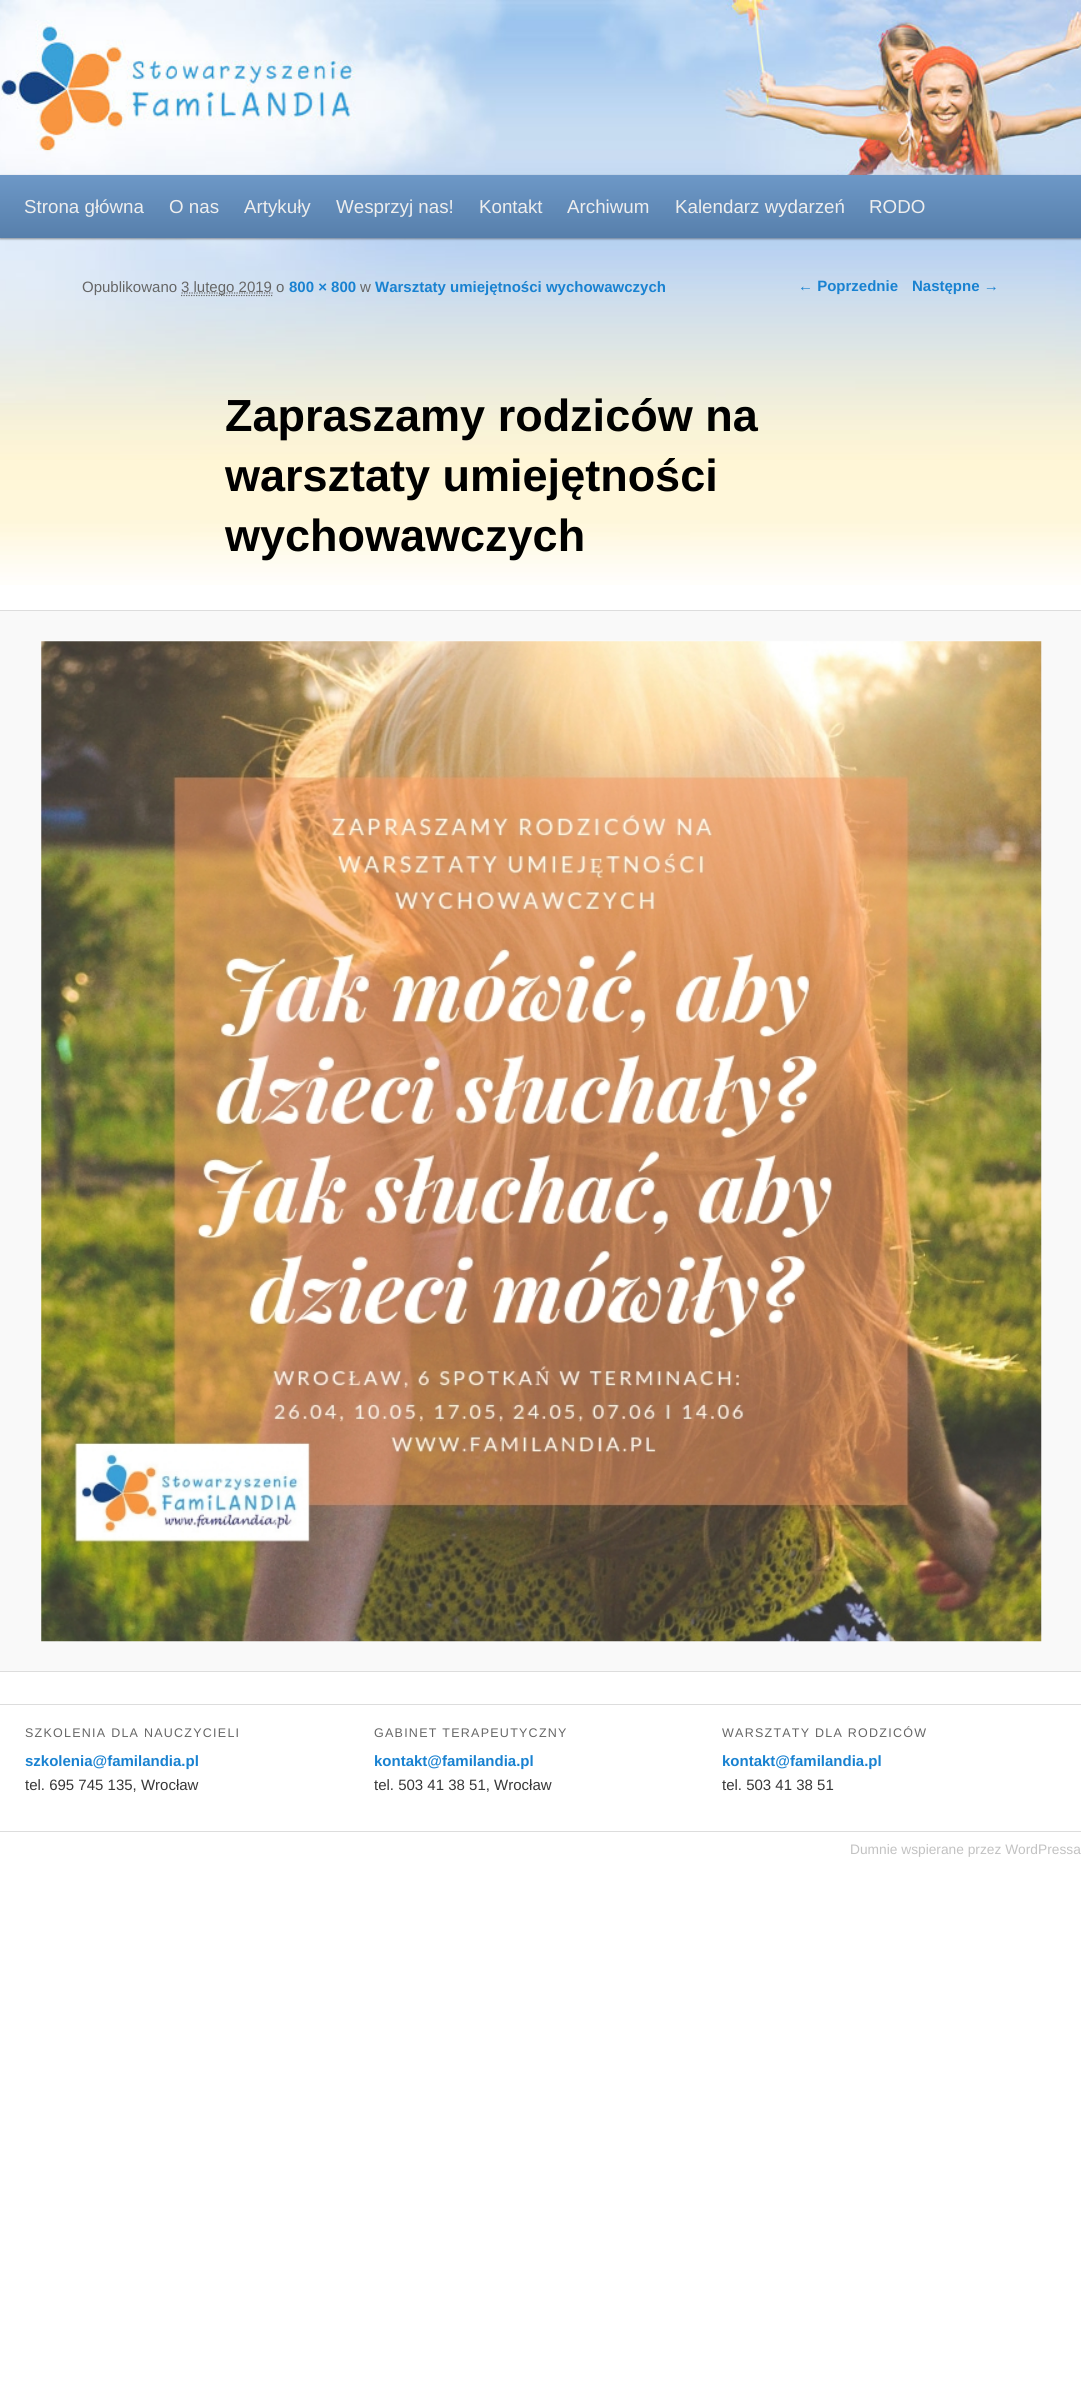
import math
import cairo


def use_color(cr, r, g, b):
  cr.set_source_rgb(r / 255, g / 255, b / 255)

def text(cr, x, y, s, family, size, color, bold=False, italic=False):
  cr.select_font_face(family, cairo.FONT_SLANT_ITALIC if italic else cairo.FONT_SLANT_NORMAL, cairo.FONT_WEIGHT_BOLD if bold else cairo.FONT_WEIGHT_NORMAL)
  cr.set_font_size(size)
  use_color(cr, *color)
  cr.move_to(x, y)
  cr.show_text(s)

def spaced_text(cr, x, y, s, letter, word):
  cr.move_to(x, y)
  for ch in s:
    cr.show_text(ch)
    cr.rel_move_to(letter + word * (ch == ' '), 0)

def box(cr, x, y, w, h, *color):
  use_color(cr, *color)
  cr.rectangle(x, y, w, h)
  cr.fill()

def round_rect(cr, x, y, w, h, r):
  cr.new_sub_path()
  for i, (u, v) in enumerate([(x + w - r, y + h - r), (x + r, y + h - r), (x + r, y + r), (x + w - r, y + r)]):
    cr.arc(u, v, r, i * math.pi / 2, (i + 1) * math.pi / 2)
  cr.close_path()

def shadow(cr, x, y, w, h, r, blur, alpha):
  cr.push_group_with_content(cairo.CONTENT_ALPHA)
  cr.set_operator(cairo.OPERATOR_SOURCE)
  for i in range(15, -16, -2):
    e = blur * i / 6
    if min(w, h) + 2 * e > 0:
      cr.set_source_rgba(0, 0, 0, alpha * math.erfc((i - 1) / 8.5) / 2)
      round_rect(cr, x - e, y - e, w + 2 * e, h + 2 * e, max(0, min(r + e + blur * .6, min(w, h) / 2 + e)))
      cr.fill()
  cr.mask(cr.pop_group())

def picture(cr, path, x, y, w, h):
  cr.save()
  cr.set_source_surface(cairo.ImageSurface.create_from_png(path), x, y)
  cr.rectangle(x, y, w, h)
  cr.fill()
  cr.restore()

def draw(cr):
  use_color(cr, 255, 255, 255)
  cr.paint()
  picture(cr, "img_01.png", 0, 403, 1081, 182)
  picture(cr, "img_02.png", 0, 0, 1081, 403)
  use_color(cr, 0, 0, 0)
  shadow(cr, 0, 176, 1081, 63, 0, 1, 0.4)
  gradient = cairo.LinearGradient(541, 175, 541, 238)
  gradient.add_color_stop_rgba(0, 0.427, 0.596, 0.78, 1)
  gradient.add_color_stop_rgba(1, 0.341, 0.498, 0.671, 1)
  cr.set_source(gradient)
  cr.rectangle(0, 175, 1081, 63)
  cr.fill()
  cr.new_path()
  cr.move_to(181, 295.5)
  cr.line_to(272.5, 295.5)
  use_color(cr, 102, 102, 102)
  cr.set_line_width(1.2)
  cr.set_dash([1.25, 1.25])
  cr.stroke()
  cr.new_path()
  cr.move_to(181.5, 293)
  cr.line_to(272.5, 293)
  cr.stroke()
  box(cr, 0, 611, 1081, 1060, 249, 249, 249)
  box(cr, 0, 610, 1081, 1, 221, 221, 221)
  box(cr, 0, 1671, 1081, 1, 221, 221, 221)
  picture(cr, "img_03.png", 41, 641, 1001, 1001)
  box(cr, 0, 1704, 1081, 1, 221, 221, 221)
  box(cr, 0, 1831, 1081, 1, 221, 221, 221)
  text(cr, 24, 213, "Strona główna", "Liberation Sans", 18.75, (238, 238, 238))
  text(cr, 169, 213, "O nas", "Liberation Sans", 18.75, (238, 238, 238))
  text(cr, 244, 213, "Artykuły", "Liberation Sans", 18.75, (238, 238, 238))
  text(cr, 336, 213, "Wesprzyj nas!", "Liberation Sans", 18.75, (238, 238, 238))
  text(cr, 479, 213, "Kontakt", "Liberation Sans", 18.75, (238, 238, 238))
  text(cr, 567, 213, "Archiwum", "Liberation Sans", 18.75, (238, 238, 238))
  text(cr, 675, 213, "Kalendarz wydarzeń", "Liberation Sans", 18.75, (238, 238, 238))
  text(cr, 869, 213, "RODO", "Liberation Sans", 18.75, (238, 238, 238))
  text(cr, 82, 292, "Opublikowano", "Liberation Sans", 15, (102, 102, 102))
  text(cr, 181, 292, "3 lutego 2019 o", "Liberation Sans", 15, (102, 102, 102))
  text(cr, 289, 292, "800 × 800", "Liberation Sans", 15, (25, 130, 209), bold=True)
  text(cr, 360, 292, "w", "Liberation Sans", 15, (102, 102, 102))
  text(cr, 375, 292, "Warsztaty umiejętności wychowawczych", "Liberation Sans", 15, (25, 130, 209), bold=True)
  text(cr, 225, 431, "Zapraszamy rodziców na", "Liberation Sans", 45, (0, 0, 0), bold=True)
  text(cr, 225, 491, "warsztaty umiejętności", "Liberation Sans", 45, (0, 0, 0), bold=True)
  text(cr, 225, 551, "wychowawczych", "Liberation Sans", 45, (0, 0, 0), bold=True)
  text(cr, 798, 291, "← Poprzednie", "Liberation Sans", 15, (25, 130, 209), bold=True)
  text(cr, 912, 291, "Następne →", "Liberation Sans", 15, (25, 130, 209), bold=True)
  cr.select_font_face("Liberation Sans")
  cr.set_font_size(12.5)
  use_color(cr, 102, 102, 102)
  spaced_text(cr, 25, 1737, "SZKOLENIA DLA NAUCZYCIELI", 1.25, 0)
  text(cr, 25, 1766, "szkolenia@familandia.pl", "Liberation Sans", 15, (25, 130, 209), bold=True)
  text(cr, 25, 1790, "tel. 695 745 135, Wrocław", "Liberation Sans", 15, (55, 55, 55))
  cr.set_font_size(12.5)
  use_color(cr, 102, 102, 102)
  spaced_text(cr, 374, 1737, "GABINET TERAPEUTYCZNY", 1.25, 0)
  text(cr, 374, 1766, "kontakt@familandia.pl", "Liberation Sans", 15, (25, 130, 209), bold=True)
  text(cr, 374, 1790, "tel. 503 41 38 51, Wrocław", "Liberation Sans", 15, (55, 55, 55))
  cr.set_font_size(12.5)
  use_color(cr, 102, 102, 102)
  spaced_text(cr, 722, 1737, "WARSZTATY DLA RODZICÓW", 1.25, 0)
  text(cr, 722, 1766, "kontakt@familandia.pl", "Liberation Sans", 15, (25, 130, 209), bold=True)
  text(cr, 722, 1790, "tel. 503 41 38 51", "Liberation Sans", 15, (55, 55, 55))
  text(cr, 850, 1854, "Dumnie wspierane przez WordPressa", "Liberation Sans", 13.75, (194, 194, 194))


surface = cairo.ImageSurface(cairo.FORMAT_RGB24, 1081, 2398)
cr = cairo.Context(surface)
options = cairo.FontOptions()
options.set_hint_metrics(cairo.HINT_METRICS_OFF)
options.set_hint_style(cairo.HINT_STYLE_NONE)
cr.set_font_options(options)
cr.set_miter_limit(4)
draw(cr)
surface.write_to_png("out.png")
